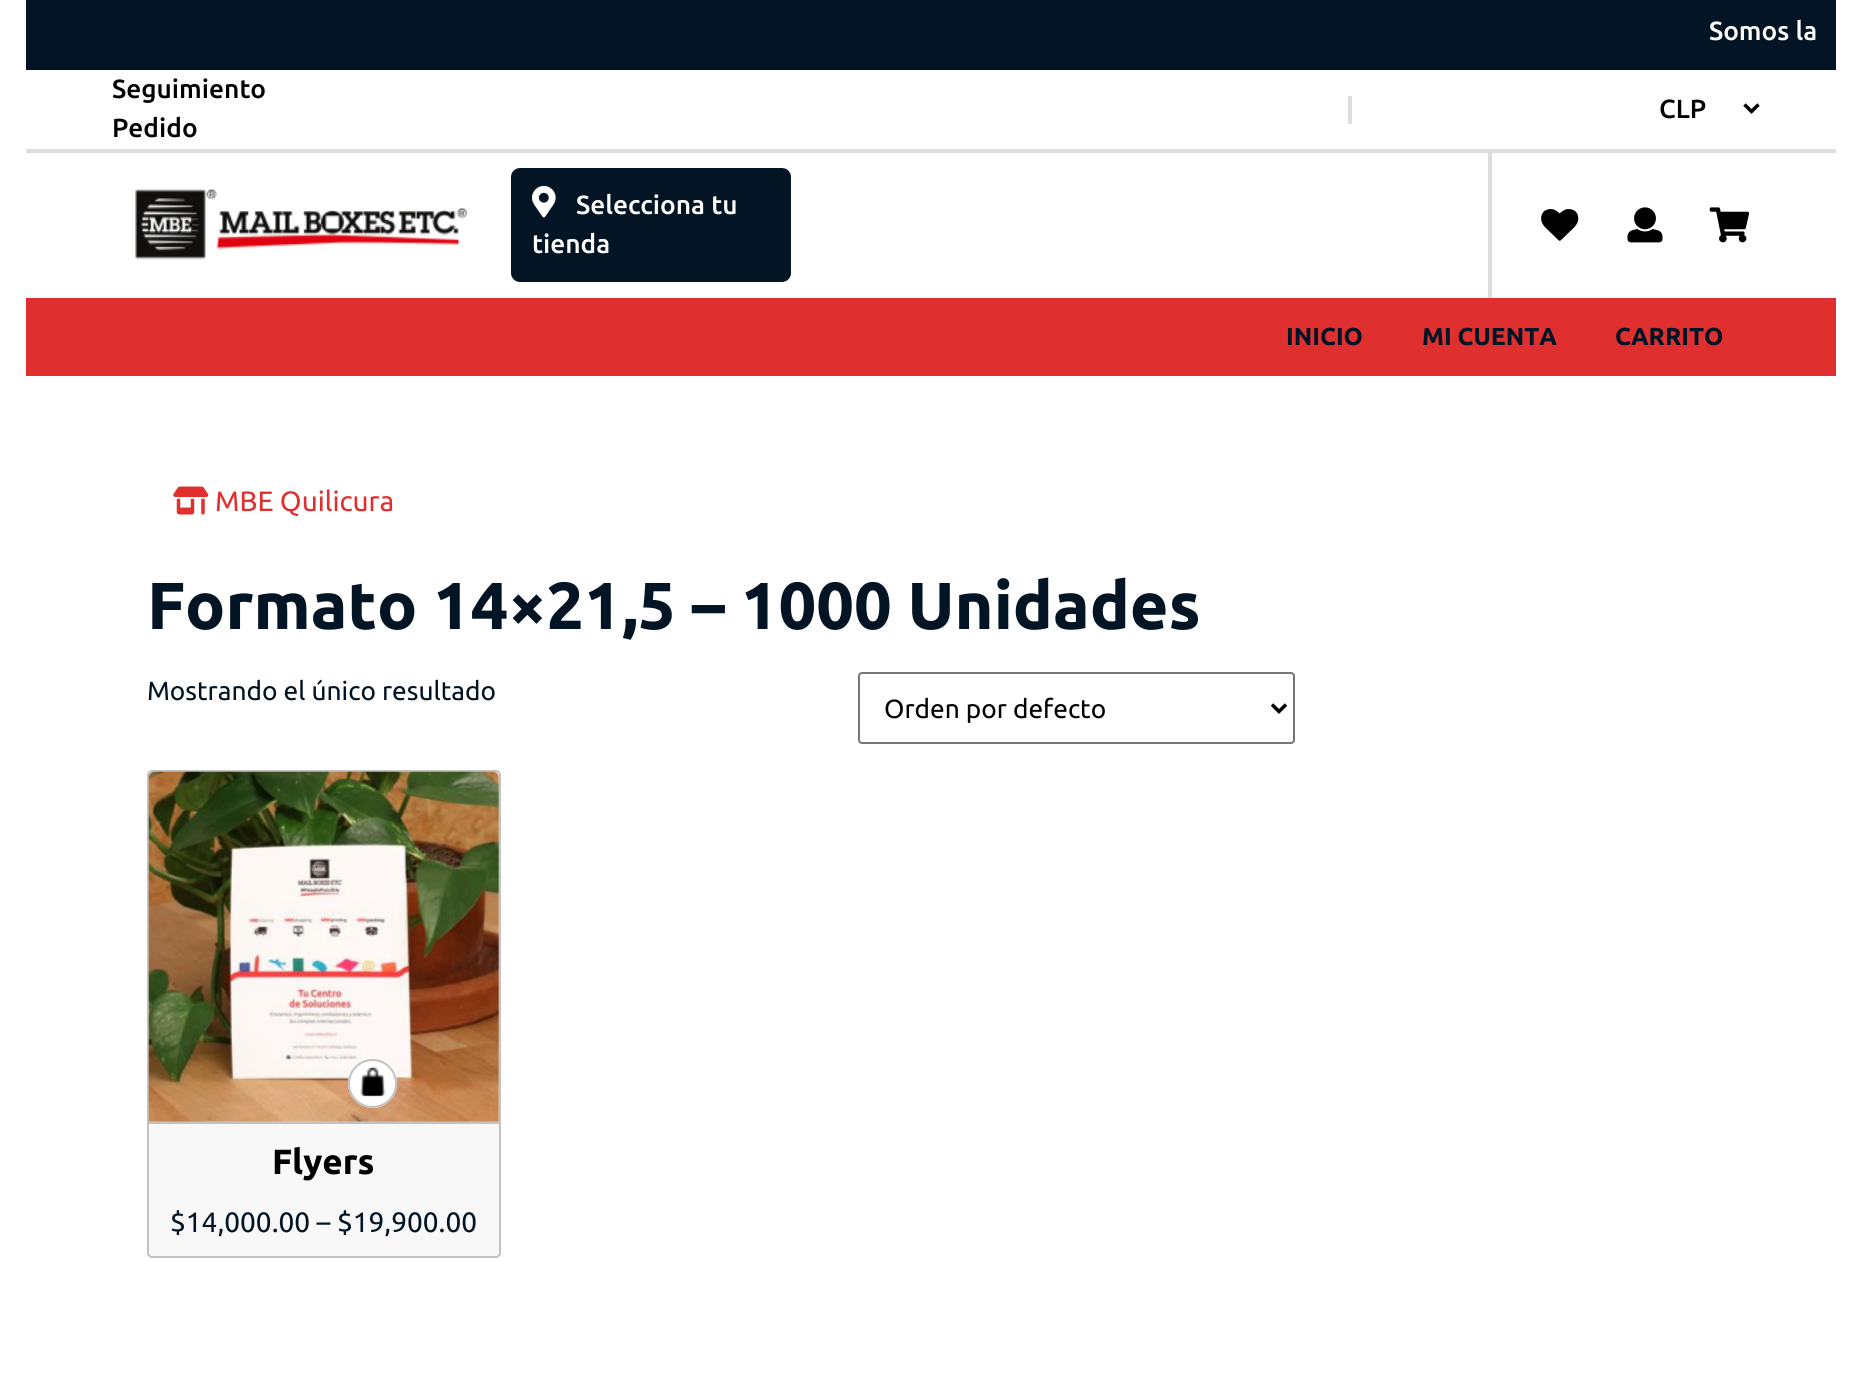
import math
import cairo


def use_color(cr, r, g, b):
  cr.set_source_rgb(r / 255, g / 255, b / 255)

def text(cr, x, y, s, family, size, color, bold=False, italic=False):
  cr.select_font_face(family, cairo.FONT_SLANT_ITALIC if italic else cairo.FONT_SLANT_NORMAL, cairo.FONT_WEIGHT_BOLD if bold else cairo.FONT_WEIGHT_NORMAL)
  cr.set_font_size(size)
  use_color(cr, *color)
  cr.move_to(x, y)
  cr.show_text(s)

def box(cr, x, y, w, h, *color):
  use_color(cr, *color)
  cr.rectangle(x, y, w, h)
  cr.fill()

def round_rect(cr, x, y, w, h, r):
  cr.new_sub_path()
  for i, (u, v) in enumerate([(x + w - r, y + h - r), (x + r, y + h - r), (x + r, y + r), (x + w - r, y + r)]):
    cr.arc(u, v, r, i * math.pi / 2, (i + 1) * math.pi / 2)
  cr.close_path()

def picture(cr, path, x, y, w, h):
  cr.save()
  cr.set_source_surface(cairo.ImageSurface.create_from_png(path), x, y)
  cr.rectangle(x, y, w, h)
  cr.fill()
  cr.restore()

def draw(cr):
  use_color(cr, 255, 255, 255)
  cr.paint()
  box(cr, 26, 0, 1810, 70, 3, 20, 36)
  box(cr, 26, 149, 1810, 4, 221, 221, 221)
  box(cr, 1348, 96, 4, 28, 221, 221, 221)
  cr.new_path()
  cr.move_to(1744.5, 104.5)
  cr.line_to(1751.5, 111.5)
  cr.line_to(1758.5, 104.5)
  use_color(cr, 0, 0, 0)
  cr.set_line_width(3.5)
  cr.stroke()
  picture(cr, "img_01.png", 135, 189, 332, 71)
  use_color(cr, 3, 20, 36)
  round_rect(cr, 511, 168, 280, 114, 9)
  cr.fill()
  picture(cr, "img_02.png", 532, 185, 24, 33)
  box(cr, 1488, 152, 4, 146, 221, 221, 221)
  picture(cr, "img_03.png", 1541, 209, 38, 32)
  picture(cr, "img_04.png", 1627, 207, 36, 36)
  picture(cr, "img_05.png", 1709, 207, 41, 36)
  box(cr, 26, 298, 1810, 78, 223, 48, 47)
  picture(cr, "img_06.png", 173, 486, 36, 29)
  round_rect(cr, 859, 673, 435, 70, 3)
  use_color(cr, 118, 118, 118)
  cr.set_line_width(2)
  cr.stroke()
  cr.new_path()
  cr.move_to(1272, 704.5)
  cr.line_to(1279, 711.5)
  cr.line_to(1286, 704.5)
  use_color(cr, 0, 0, 0)
  cr.set_line_width(3.5)
  cr.stroke()
  use_color(cr, 248, 248, 248)
  round_rect(cr, 148, 771, 352, 486, 4)
  cr.fill_preserve()
  use_color(cr, 194, 194, 194)
  cr.set_line_width(2)
  cr.stroke()
  picture(cr, "img_08.png", 148, 771, 351, 351)
  use_color(cr, 255, 255, 255)
  cr.arc(372.5, 1083.5, 24.5, 0, 2 * math.pi)
  cr.fill()
  picture(cr, "img_07.png", 360, 1067, 26, 30)
  cr.arc(372.5, 1083.5, 23.5, 0, 2 * math.pi)
  use_color(cr, 194, 194, 194)
  cr.stroke()
  box(cr, 149, 1122, 350, 2, 194, 194, 194)
  text(cr, 1709, 40, "Somos la", "Ubuntu Medium", 26.25, (255, 255, 255))
  text(cr, 112, 98, "Seguimiento", "Ubuntu Medium", 26.25, (0, 0, 0))
  text(cr, 112, 137, "Pedido", "Ubuntu Medium", 26.25, (0, 0, 0))
  text(cr, 1659, 118, "CLP", "Ubuntu Medium", 26.25, (0, 0, 0))
  text(cr, 576, 214, "Selecciona tu", "Ubuntu Medium", 26.25, (255, 255, 255))
  text(cr, 532, 253, "tienda", "Ubuntu Medium", 26.25, (255, 255, 255))
  text(cr, 1286, 345, "INICIO", "Ubuntu", 24.5, (3, 20, 36), bold=True)
  text(cr, 1422, 345, "MI CUENTA", "Ubuntu", 24.5, (3, 20, 36), bold=True)
  text(cr, 1615, 345, "CARRITO", "Ubuntu", 24.5, (3, 20, 36), bold=True)
  text(cr, 215, 511, "MBE Quilicura", "Ubuntu", 28, (223, 48, 47))
  text(cr, 147, 629, "Formato 14×21,5 – 1000 Unidades", "Ubuntu", 66.4, (3, 20, 36), bold=True)
  text(cr, 147, 700, "Mostrando el único resultado", "Ubuntu", 26.25, (3, 20, 36))
  text(cr, 884, 718, "Orden por defecto", "Ubuntu", 26.25, (0, 0, 0))
  text(cr, 272, 1174, "Flyers", "Ubuntu", 35, (0, 0, 0), bold=True)
  text(cr, 170, 1232, "$14,000.00 – $19,900.00", "Ubuntu", 28, (3, 20, 36))


surface = cairo.ImageSurface(cairo.FORMAT_RGB24, 1862, 1374)
cr = cairo.Context(surface)
options = cairo.FontOptions()
options.set_hint_metrics(cairo.HINT_METRICS_OFF)
options.set_hint_style(cairo.HINT_STYLE_NONE)
cr.set_font_options(options)
cr.set_miter_limit(4)
draw(cr)
surface.write_to_png("out.png")
